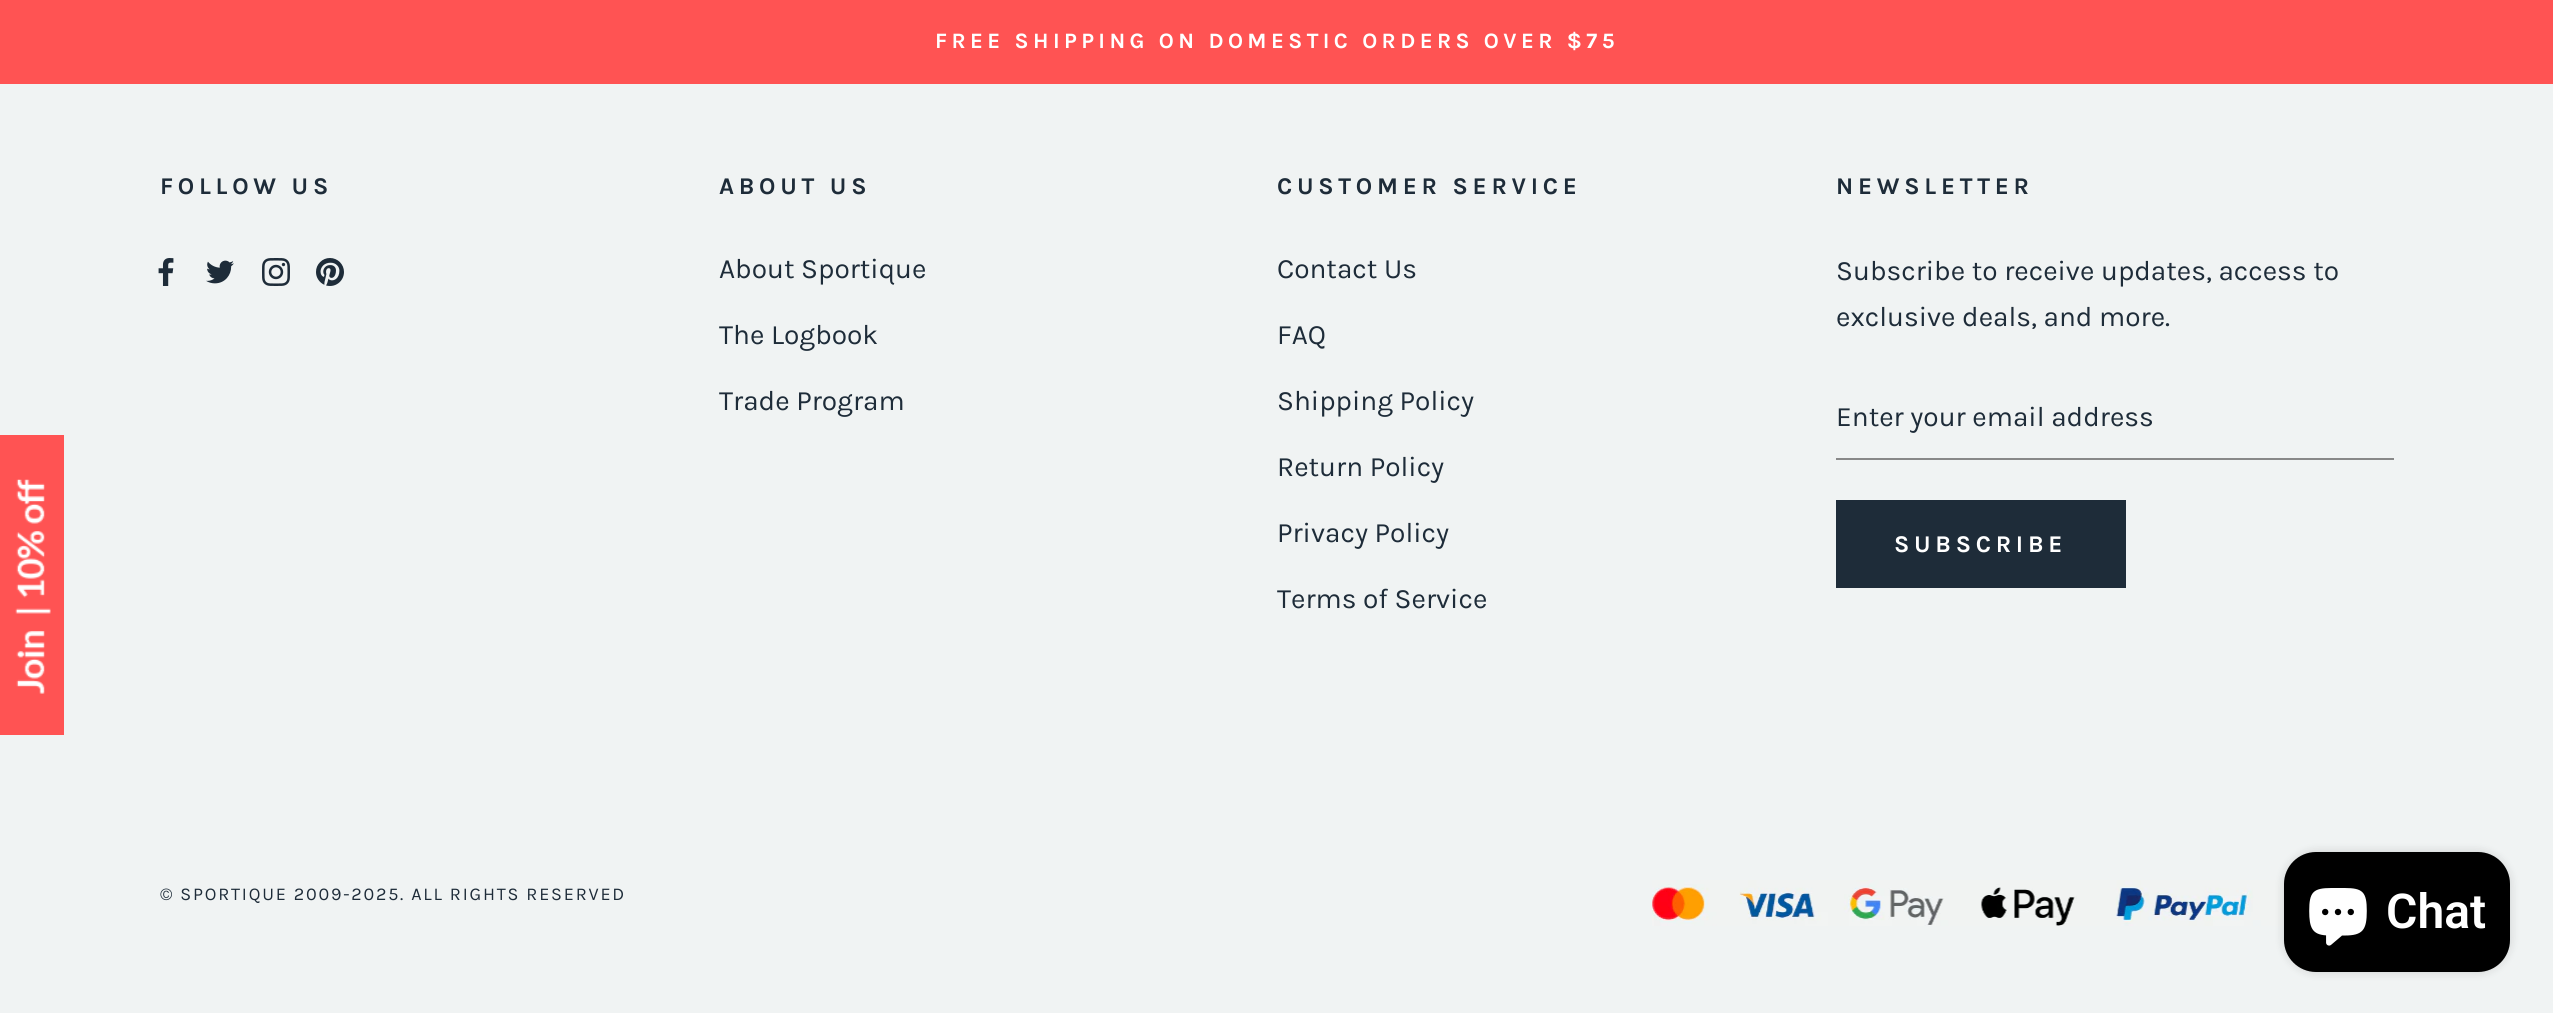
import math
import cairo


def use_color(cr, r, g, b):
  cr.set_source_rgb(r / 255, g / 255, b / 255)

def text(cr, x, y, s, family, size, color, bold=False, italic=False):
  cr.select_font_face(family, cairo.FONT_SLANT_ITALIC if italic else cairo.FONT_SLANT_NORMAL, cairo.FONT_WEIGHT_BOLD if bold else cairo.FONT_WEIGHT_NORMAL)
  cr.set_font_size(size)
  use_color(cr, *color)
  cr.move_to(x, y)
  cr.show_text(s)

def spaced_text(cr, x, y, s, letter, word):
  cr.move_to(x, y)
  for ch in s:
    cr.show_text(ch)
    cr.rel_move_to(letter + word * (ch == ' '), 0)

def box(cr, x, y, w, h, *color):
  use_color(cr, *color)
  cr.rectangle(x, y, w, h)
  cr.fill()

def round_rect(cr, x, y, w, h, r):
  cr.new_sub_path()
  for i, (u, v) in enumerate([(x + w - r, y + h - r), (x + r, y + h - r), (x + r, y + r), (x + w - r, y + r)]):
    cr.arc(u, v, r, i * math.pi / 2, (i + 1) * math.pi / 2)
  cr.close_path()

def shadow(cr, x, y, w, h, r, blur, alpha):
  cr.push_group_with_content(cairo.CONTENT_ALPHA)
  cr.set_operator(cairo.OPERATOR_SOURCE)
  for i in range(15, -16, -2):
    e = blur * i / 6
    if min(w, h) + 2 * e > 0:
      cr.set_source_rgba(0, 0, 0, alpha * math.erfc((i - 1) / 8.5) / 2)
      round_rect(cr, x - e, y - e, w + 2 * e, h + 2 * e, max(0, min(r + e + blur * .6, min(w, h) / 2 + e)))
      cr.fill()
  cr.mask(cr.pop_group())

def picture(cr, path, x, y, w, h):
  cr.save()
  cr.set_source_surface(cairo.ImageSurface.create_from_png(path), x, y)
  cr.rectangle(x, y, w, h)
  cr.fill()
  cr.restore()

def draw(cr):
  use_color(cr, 240, 243, 243)
  cr.paint()
  box(cr, 0, 0, 2553, 84, 255, 83, 83)
  box(cr, 0, 435, 64, 300, 255, 83, 83)
  picture(cr, "img_01.png", 15, 479, 36, 215)
  picture(cr, "img_02.png", 158, 258, 16, 28)
  picture(cr, "img_03.png", 206, 260, 28, 24)
  picture(cr, "img_04.png", 262, 258, 28, 28)
  picture(cr, "img_05.png", 316, 258, 28, 28)
  box(cr, 1836, 458, 558, 2, 136, 136, 136)
  cr.rectangle(1837, 501, 288, 86)
  use_color(cr, 30, 44, 57)
  cr.stroke()
  box(cr, 1838, 502, 286, 84, 30, 44, 57)
  picture(cr, "img_06.png", 1652, 880, 633, 46)
  use_color(cr, 0, 0, 0)
  shadow(cr, 2284, 852, 226, 120, 32, 5, 0.15)
  use_color(cr, 0, 0, 0)
  round_rect(cr, 2284, 852, 226, 120, 32)
  cr.fill()
  picture(cr, "img_07.png", 2309, 888, 58, 58)
  cr.select_font_face("Karla", cairo.FONT_SLANT_NORMAL, cairo.FONT_WEIGHT_BOLD)
  cr.set_font_size(22)
  use_color(cr, 255, 255, 255)
  spaced_text(cr, 935, 48, "FREE SHIPPING ON DOMESTIC ORDERS OVER $75", 4.4, 0)
  cr.set_font_size(24)
  use_color(cr, 30, 44, 57)
  spaced_text(cr, 160, 194, "FOLLOW US", 4.75, 0)
  spaced_text(cr, 719, 194, "ABOUT US", 4.75, 0)
  text(cr, 719, 278, "About Sportique", "Karla", 28, (30, 44, 57))
  text(cr, 719, 344, "The Logbook", "Karla", 28, (30, 44, 57))
  text(cr, 719, 410, "Trade Program", "Karla", 28, (30, 44, 57))
  cr.select_font_face("Karla", cairo.FONT_SLANT_NORMAL, cairo.FONT_WEIGHT_BOLD)
  cr.set_font_size(24)
  spaced_text(cr, 1277, 194, "CUSTOMER SERVICE", 4.75, 0)
  text(cr, 1277, 278, "Contact Us", "Karla", 28, (30, 44, 57))
  text(cr, 1277, 344, "FAQ", "Karla", 28, (30, 44, 57))
  text(cr, 1277, 410, "Shipping Policy", "Karla", 28, (30, 44, 57))
  text(cr, 1277, 476, "Return Policy", "Karla", 28, (30, 44, 57))
  text(cr, 1277, 542, "Privacy Policy", "Karla", 28, (30, 44, 57))
  text(cr, 1277, 608, "Terms of Service", "Karla", 28, (30, 44, 57))
  cr.select_font_face("Karla", cairo.FONT_SLANT_NORMAL, cairo.FONT_WEIGHT_BOLD)
  cr.set_font_size(24)
  spaced_text(cr, 1836, 194, "NEWSLETTER", 4.75, 0)
  text(cr, 1836, 280, "Subscribe to receive updates, access to", "Karla", 28, (30, 44, 57))
  text(cr, 1836, 326, "exclusive deals, and more.", "Karla", 28, (30, 44, 57))
  text(cr, 1836, 426, "Enter your email address", "Karla", 28, (30, 44, 57))
  cr.select_font_face("Karla", cairo.FONT_SLANT_NORMAL, cairo.FONT_WEIGHT_BOLD)
  cr.set_font_size(24)
  use_color(cr, 255, 255, 255)
  spaced_text(cr, 1894, 552, "SUBSCRIBE", 4.75, 0)
  cr.select_font_face("Karla")
  cr.set_font_size(18)
  use_color(cr, 30, 44, 57)
  spaced_text(cr, 160, 900, "© SPORTIQUE 2009-2025. ALL RIGHTS RESERVED", 1.8, 0)
  text(cr, 2386, 928, "Chat", "Roboto SemiBold", 48, (255, 255, 255))


surface = cairo.ImageSurface(cairo.FORMAT_RGB24, 2553, 1013)
cr = cairo.Context(surface)
options = cairo.FontOptions()
options.set_hint_metrics(cairo.HINT_METRICS_OFF)
options.set_hint_style(cairo.HINT_STYLE_NONE)
cr.set_font_options(options)
cr.set_miter_limit(4)
draw(cr)
surface.write_to_png("out.png")
